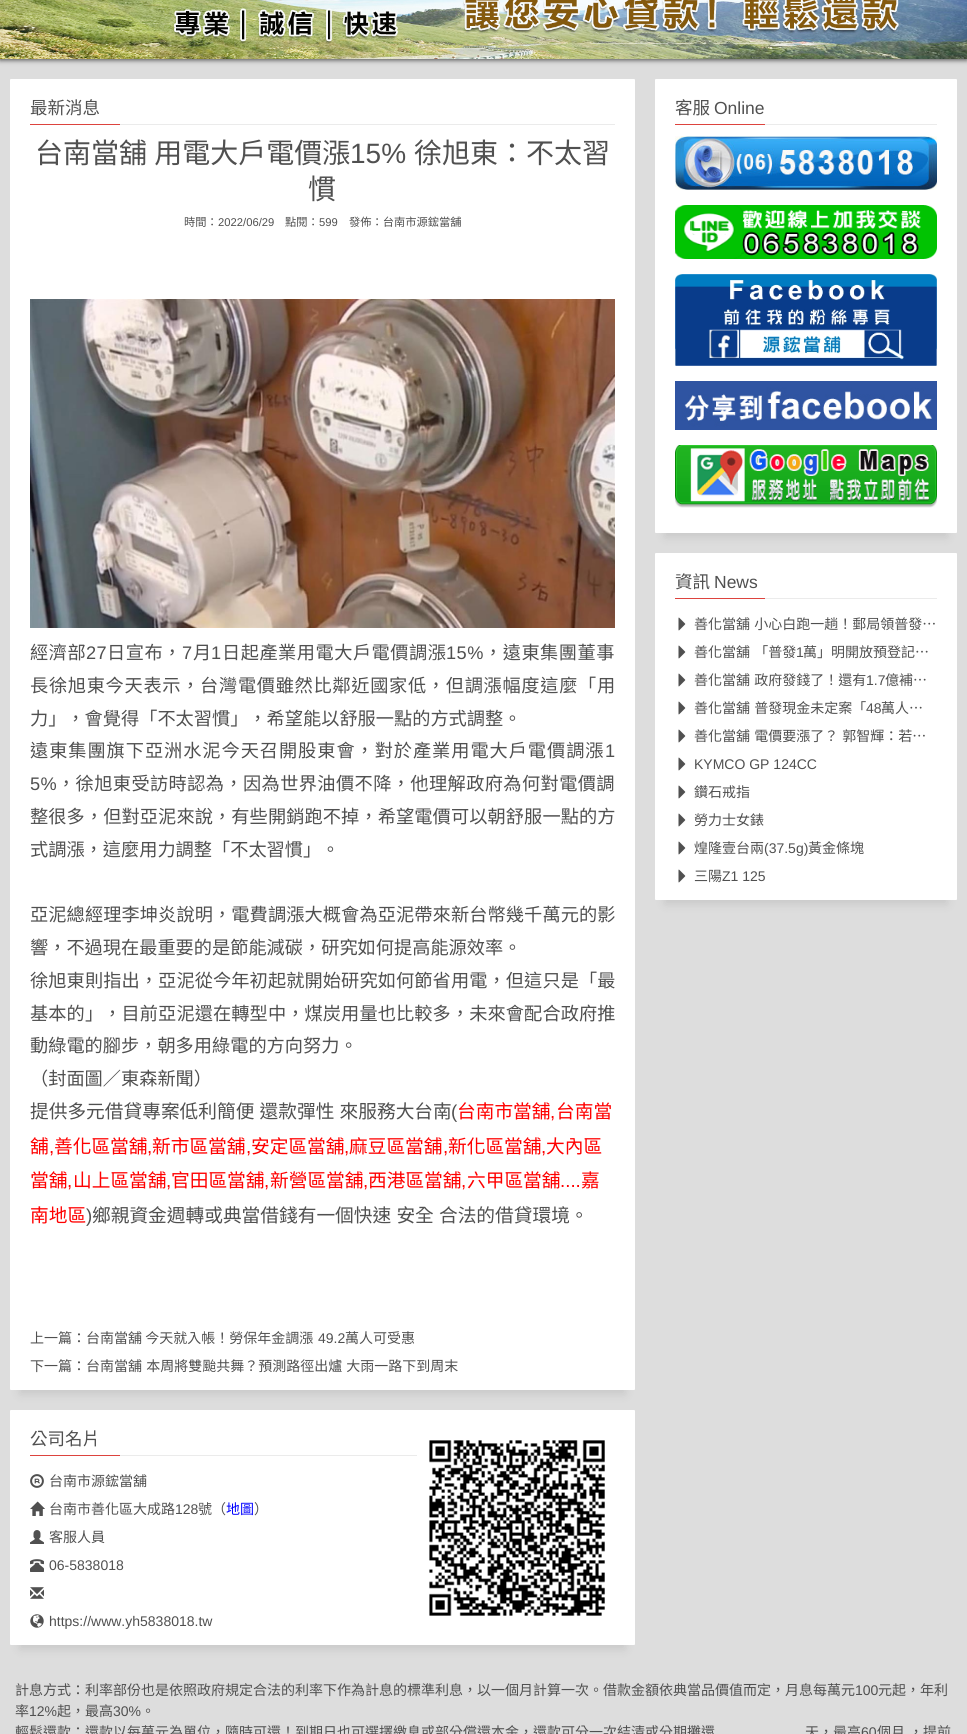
import math
import cairo


def use_color(cr, r, g, b):
  cr.set_source_rgb(r / 255, g / 255, b / 255)

def text(cr, x, y, s, family, size, color, bold=False, italic=False):
  cr.select_font_face(family, cairo.FONT_SLANT_ITALIC if italic else cairo.FONT_SLANT_NORMAL, cairo.FONT_WEIGHT_BOLD if bold else cairo.FONT_WEIGHT_NORMAL)
  cr.set_font_size(size)
  use_color(cr, *color)
  cr.move_to(x, y)
  cr.show_text(s)

def spaced_text(cr, x, y, s, letter, word):
  cr.move_to(x, y)
  for ch in s:
    cr.show_text(ch)
    cr.rel_move_to(letter + word * (ch == ' '), 0)

def box(cr, x, y, w, h, *color):
  use_color(cr, *color)
  cr.rectangle(x, y, w, h)
  cr.fill()

def round_rect(cr, x, y, w, h, r):
  cr.new_sub_path()
  for i, (u, v) in enumerate([(x + w - r, y + h - r), (x + r, y + h - r), (x + r, y + r), (x + w - r, y + r)]):
    cr.arc(u, v, r, i * math.pi / 2, (i + 1) * math.pi / 2)
  cr.close_path()

def shadow(cr, x, y, w, h, r, blur, alpha):
  cr.push_group_with_content(cairo.CONTENT_ALPHA)
  cr.set_operator(cairo.OPERATOR_SOURCE)
  for i in range(15, -16, -2):
    e = blur * i / 6
    if min(w, h) + 2 * e > 0:
      cr.set_source_rgba(0, 0, 0, alpha * math.erfc((i - 1) / 8.5) / 2)
      round_rect(cr, x - e, y - e, w + 2 * e, h + 2 * e, max(0, min(r + e + blur * .6, min(w, h) / 2 + e)))
      cr.fill()
  cr.mask(cr.pop_group())

def picture(cr, path, x, y, w, h):
  cr.save()
  cr.set_source_surface(cairo.ImageSurface.create_from_png(path), x, y)
  cr.rectangle(x, y, w, h)
  cr.fill()
  cr.restore()

def draw(cr):
  use_color(cr, 221, 221, 221)
  cr.paint()
  use_color(cr, 74, 74, 74)
  shadow(cr, 0, -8, 967, 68, 0, 2.5, 1)
  picture(cr, "img_01.png", 0, 0, 967, 59)
  use_color(cr, 0, 0, 0)
  shadow(cr, 20, 103, 605, 1291, 0, 5, 0.1)
  use_color(cr, 255, 255, 255)
  round_rect(cr, 10, 79, 625, 1311, 1)
  cr.fill()
  box(cr, 120, 124, 495, 1, 235, 235, 235)
  box(cr, 30, 124, 90, 1, 221, 67, 62)
  picture(cr, "img_02.png", 30, 299, 585, 329)
  use_color(cr, 0, 0, 0)
  shadow(cr, 20, 1434, 605, 215, 0, 5, 0.1)
  use_color(cr, 255, 255, 255)
  round_rect(cr, 10, 1410, 625, 235, 1)
  cr.fill()
  box(cr, 120, 1455, 297, 1, 235, 235, 235)
  box(cr, 30, 1455, 90, 1, 221, 67, 62)
  picture(cr, "img_03.png", 30, 1474, 14, 14)
  picture(cr, "img_04.png", 417, 1440, 198, 176)
  picture(cr, "img_05.png", 30, 1501, 15, 15)
  picture(cr, "img_06.png", 30, 1530, 14, 14)
  picture(cr, "img_07.png", 30, 1559, 14, 13)
  picture(cr, "img_08.png", 30, 1587, 14, 12)
  picture(cr, "img_09.png", 30, 1614, 14, 14)
  use_color(cr, 0, 0, 0)
  shadow(cr, 665, 103, 282, 434, 0, 5, 0.1)
  use_color(cr, 255, 255, 255)
  round_rect(cr, 655, 79, 302, 454, 1)
  cr.fill()
  box(cr, 765, 124, 172, 1, 235, 235, 235)
  box(cr, 675, 124, 90, 1, 221, 67, 62)
  picture(cr, "img_10.png", 675, 136, 262, 54)
  picture(cr, "img_11.png", 675, 205, 262, 54)
  picture(cr, "img_12.png", 675, 274, 262, 92)
  picture(cr, "img_13.png", 675, 381, 262, 49)
  picture(cr, "img_14.png", 675, 445, 262, 63)
  use_color(cr, 0, 0, 0)
  shadow(cr, 665, 577, 282, 327, 0, 5, 0.1)
  use_color(cr, 255, 255, 255)
  round_rect(cr, 655, 553, 302, 347, 1)
  cr.fill()
  box(cr, 765, 598, 172, 1, 235, 235, 235)
  box(cr, 675, 598, 90, 1, 221, 67, 62)
  picture(cr, "img_15.png", 678, 617, 8, 14)
  picture(cr, "img_15.png", 678, 645, 8, 14)
  picture(cr, "img_15.png", 678, 673, 8, 14)
  picture(cr, "img_15.png", 678, 701, 8, 14)
  picture(cr, "img_15.png", 678, 729, 8, 14)
  picture(cr, "img_15.png", 678, 757, 8, 14)
  picture(cr, "img_15.png", 678, 785, 8, 14)
  picture(cr, "img_15.png", 678, 813, 8, 14)
  picture(cr, "img_15.png", 678, 841, 8, 14)
  picture(cr, "img_15.png", 678, 869, 8, 14)
  text(cr, 30, 114, "最新消息", "Noto Sans CJK TC", 17.5, (80, 80, 80))
  cr.set_font_size(28)
  spaced_text(cr, 35, 163, "台南當舖 用電大戶電價漲", 0, 1)
  text(cr, 350, 163, "15%", "Liberation Sans", 28, (80, 80, 80))
  text(cr, 414, 163, "徐旭東：不太習", "Noto Sans CJK TC", 28, (80, 80, 80))
  text(cr, 308, 199, "慣", "Noto Sans CJK TC", 28, (80, 80, 80))
  text(cr, 184, 226, "時間：", "Noto Sans CJK TC", 11.25, (80, 80, 80))
  text(cr, 218, 226, "2022/06/29", "Liberation Sans", 11.25, (80, 80, 80))
  text(cr, 285, 226, "點閱：", "Noto Sans CJK TC", 11.25, (80, 80, 80))
  text(cr, 319, 226, "599", "Liberation Sans", 11.25, (80, 80, 80))
  text(cr, 349, 226, "發佈：台南市源鋐當舖", "Noto Sans CJK TC", 11.25, (80, 80, 80))
  cr.set_font_size(18.2)
  spaced_text(cr, 30, 659, "經濟部", 0.5, 0)
  cr.select_font_face("Liberation Sans")
  spaced_text(cr, 86, 659, "27", 0.5, 0)
  cr.select_font_face("Noto Sans CJK TC")
  spaced_text(cr, 107, 659, "日宣布，", 0.5, 0)
  cr.select_font_face("Liberation Sans")
  spaced_text(cr, 182, 659, "7", 0.5, 0)
  cr.select_font_face("Noto Sans CJK TC")
  spaced_text(cr, 193, 659, "月", 0.5, 0)
  cr.select_font_face("Liberation Sans")
  spaced_text(cr, 211, 659, "1", 0.5, 0)
  cr.select_font_face("Noto Sans CJK TC")
  spaced_text(cr, 222, 659, "日起產業用電大戶電價調漲", 0.5, 0)
  cr.select_font_face("Liberation Sans")
  spaced_text(cr, 446, 659, "15%", 0.5, 0)
  cr.select_font_face("Noto Sans CJK TC")
  spaced_text(cr, 484, 659, "，遠東集團董事", 0.5, 0)
  spaced_text(cr, 30, 692, "長徐旭東今天表示，台灣電價雖然比鄰近國家低，但調漲幅度這麼「用", 0.7, 0)
  text(cr, 30, 725, "力」，會覺得「不太習慣」，希望能以舒服一點的方式調整。", "Noto Sans CJK TC", 18.2, (80, 80, 80))
  spaced_text(cr, 30, 757, "遠東集團旗下亞洲水泥今天召開股東會，對於產業用電大戶電價調漲", 0.95, 0)
  cr.select_font_face("Liberation Sans")
  spaced_text(cr, 605, 757, "1", 0.95, 0)
  spaced_text(cr, 30, 790, "5%", 0.4, 0)
  cr.select_font_face("Noto Sans CJK TC")
  spaced_text(cr, 57, 790, "，徐旭東受訪時認為，因為世界油價不降，他理解政府為何對電價調", 0.4, 0)
  spaced_text(cr, 30, 823, "整很多，但對亞泥來說，有些開銷跑不掉，希望電價可以朝舒服一點的方", 0.1, 0)
  text(cr, 30, 856, "式調漲，這麼用力調整「不太習慣」。", "Noto Sans CJK TC", 18.2, (80, 80, 80))
  spaced_text(cr, 30, 921, "亞泥總經理李坤炎說明，電費調漲大概會為亞泥帶來新台幣幾千萬元的影", 0.1, 0)
  text(cr, 30, 954, "響，不過現在最重要的是節能減碳，研究如何提高能源效率。", "Noto Sans CJK TC", 18.2, (80, 80, 80))
  spaced_text(cr, 30, 987, "徐旭東則指出，亞泥從今年初起就開始研究如何節省用電，但這只是「最", 0.1, 0)
  spaced_text(cr, 30, 1020, "基本的」，目前亞泥還在轉型中，煤炭用量也比較多，未來會配合政府推", 0.1, 0)
  text(cr, 30, 1052, "動綠電的腳步，朝多用綠電的方向努力。", "Noto Sans CJK TC", 18.2, (80, 80, 80))
  text(cr, 30, 1085, "（封面圖／東森新聞）", "Noto Sans CJK TC", 18.2, (80, 80, 80))
  cr.set_font_size(18.7)
  spaced_text(cr, 30, 1118, "提供多元借貸專案低利簡便 還款彈性 來服務大台南", 0, 1)
  text(cr, 451, 1118, "(", "Liberation Sans", 18.7, (80, 80, 80))
  text(cr, 457, 1118, "台南市當舖", "Noto Sans CJK TC", 18.7, (255, 0, 0))
  text(cr, 550, 1118, ",", "Liberation Sans", 18.7, (255, 0, 0))
  text(cr, 556, 1118, "台南當", "Noto Sans CJK TC", 18.7, (255, 0, 0))
  text(cr, 30, 1153, "舖", "Noto Sans CJK TC", 18.7, (255, 0, 0))
  text(cr, 49, 1153, ",", "Liberation Sans", 18.7, (255, 0, 0))
  text(cr, 54, 1153, "善化區當舖", "Noto Sans CJK TC", 18.7, (255, 0, 0))
  text(cr, 147, 1153, ",", "Liberation Sans", 18.7, (255, 0, 0))
  text(cr, 152, 1153, "新市區當舖", "Noto Sans CJK TC", 18.7, (255, 0, 0))
  text(cr, 246, 1153, ",", "Liberation Sans", 18.7, (255, 0, 0))
  text(cr, 251, 1153, "安定區當舖", "Noto Sans CJK TC", 18.7, (255, 0, 0))
  text(cr, 344, 1153, ",", "Liberation Sans", 18.7, (255, 0, 0))
  text(cr, 349, 1153, "麻豆區當舖", "Noto Sans CJK TC", 18.7, (255, 0, 0))
  text(cr, 443, 1153, ",", "Liberation Sans", 18.7, (255, 0, 0))
  text(cr, 448, 1153, "新化區當舖", "Noto Sans CJK TC", 18.7, (255, 0, 0))
  text(cr, 541, 1153, ",", "Liberation Sans", 18.7, (255, 0, 0))
  text(cr, 546, 1153, "大內區", "Noto Sans CJK TC", 18.7, (255, 0, 0))
  text(cr, 30, 1187, "當舖", "Noto Sans CJK TC", 18.7, (255, 0, 0))
  text(cr, 67, 1187, ",", "Liberation Sans", 18.7, (255, 0, 0))
  text(cr, 73, 1187, "山上區當舖", "Noto Sans CJK TC", 18.7, (255, 0, 0))
  text(cr, 166, 1187, ",", "Liberation Sans", 18.7, (255, 0, 0))
  text(cr, 171, 1187, "官田區當舖", "Noto Sans CJK TC", 18.7, (255, 0, 0))
  text(cr, 264, 1187, ",", "Liberation Sans", 18.7, (255, 0, 0))
  text(cr, 270, 1187, "新營區當舖", "Noto Sans CJK TC", 18.7, (255, 0, 0))
  text(cr, 363, 1187, ",", "Liberation Sans", 18.7, (255, 0, 0))
  text(cr, 368, 1187, "西港區當舖", "Noto Sans CJK TC", 18.7, (255, 0, 0))
  text(cr, 461, 1187, ",", "Liberation Sans", 18.7, (255, 0, 0))
  text(cr, 467, 1187, "六甲區當舖", "Noto Sans CJK TC", 18.7, (255, 0, 0))
  text(cr, 560, 1187, "....", "Liberation Sans", 18.7, (255, 0, 0))
  text(cr, 581, 1187, "嘉", "Noto Sans CJK TC", 18.7, (255, 0, 0))
  text(cr, 30, 1222, "南地區", "Noto Sans CJK TC", 18.7, (255, 0, 0))
  text(cr, 86, 1222, ")", "Liberation Sans", 18.7, (80, 80, 80))
  cr.select_font_face("Noto Sans CJK TC")
  spaced_text(cr, 92, 1222, "鄉親資金週轉或典當借錢有一個快速 安全 合法的借貸環境。", 0, 1)
  text(cr, 30, 1343, "上一篇：", "Noto Sans CJK TC", 14, (80, 80, 80))
  text(cr, 86, 1343, "台南當舖 今天就入帳！勞保年金調漲", "Noto Sans CJK TC", 14, (80, 80, 80))
  text(cr, 318, 1343, "49.2", "Liberation Sans", 14, (80, 80, 80))
  text(cr, 345, 1343, "萬人可受惠", "Noto Sans CJK TC", 14, (80, 80, 80))
  text(cr, 30, 1371, "下一篇：", "Noto Sans CJK TC", 14, (80, 80, 80))
  spaced_text(cr, 86, 1371, "台南當舖 本周將雙颱共舞？預測路徑出爐 大雨一路下到周末", 0, 1)
  text(cr, 30, 1445, "公司名片", "Noto Sans CJK TC", 17.5, (80, 80, 80))
  text(cr, 49, 1486, "台南市源鋐當舖", "Noto Sans CJK TC", 14, (80, 80, 80))
  text(cr, 49, 1514, "台南市善化區大成路", "Noto Sans CJK TC", 14, (80, 80, 80))
  text(cr, 175, 1514, "128", "Liberation Sans", 14, (80, 80, 80))
  text(cr, 198, 1514, "號（", "Noto Sans CJK TC", 14, (80, 80, 80))
  text(cr, 226, 1514, "地圖", "Noto Sans CJK TC", 14, (0, 0, 255))
  text(cr, 254, 1514, "）", "Noto Sans CJK TC", 14, (80, 80, 80))
  text(cr, 49, 1542, "客服人員", "Noto Sans CJK TC", 14, (80, 80, 80))
  text(cr, 49, 1570, "06-5838018", "Liberation Sans", 14, (80, 80, 80))
  text(cr, 49, 1626, "https://www.yh5838018.tw", "Liberation Sans", 14, (80, 80, 80))
  text(cr, 675, 114, "客服", "Noto Sans CJK TC", 17.5, (80, 80, 80))
  text(cr, 714, 114, "Online", "Liberation Sans", 17.5, (80, 80, 80))
  text(cr, 675, 588, "資訊", "Noto Sans CJK TC", 17.5, (80, 80, 80))
  text(cr, 714, 588, "News", "Liberation Sans", 17.5, (80, 80, 80))
  cr.select_font_face("Noto Sans CJK TC")
  cr.set_font_size(14)
  spaced_text(cr, 694, 629, "善化當舖 小心白跑一趟！郵局領普發…", 0, 1)
  spaced_text(cr, 694, 657, "善化當舖 「普發", 0, 1)
  text(cr, 796, 657, "1", "Liberation Sans", 14, (80, 80, 80))
  text(cr, 803, 657, "萬」明開放預登記…", "Noto Sans CJK TC", 14, (80, 80, 80))
  spaced_text(cr, 694, 685, "善化當舖 政府發錢了！還有", 0, 1)
  text(cr, 866, 685, "1.7", "Liberation Sans", 14, (80, 80, 80))
  cr.select_font_face("Noto Sans CJK TC")
  spaced_text(cr, 885, 685, "億補…", 0, 1)
  spaced_text(cr, 694, 713, "善化當舖 普發現金未定案「", 0, 1)
  text(cr, 866, 713, "48", "Liberation Sans", 14, (80, 80, 80))
  cr.select_font_face("Noto Sans CJK TC")
  spaced_text(cr, 881, 713, "萬人…", 0, 1)
  spaced_text(cr, 694, 741, "善化當舖 電價要漲了？ 郭智輝：若…", 0, 1)
  text(cr, 694, 769, "KYMCO GP 124CC", "Liberation Sans", 14, (80, 80, 80))
  text(cr, 694, 797, "鑽石戒指", "Noto Sans CJK TC", 14, (80, 80, 80))
  text(cr, 694, 825, "勞力士女錶", "Noto Sans CJK TC", 14, (80, 80, 80))
  text(cr, 694, 853, "煌隆壹台兩", "Noto Sans CJK TC", 14, (80, 80, 80))
  text(cr, 764, 853, "(37.5g)", "Liberation Sans", 14, (80, 80, 80))
  text(cr, 808, 853, "黃金條塊", "Noto Sans CJK TC", 14, (80, 80, 80))
  text(cr, 694, 881, "三陽", "Noto Sans CJK TC", 14, (80, 80, 80))
  text(cr, 722, 881, "Z1 125", "Liberation Sans", 14, (80, 80, 80))
  text(cr, 15, 1695, "計息方式：利率部份也是依照政府規定合法的利率下作為計息的標準利息，以一個月計算一次。借款金額依典當品價值而定，月息每萬元", "Noto Sans CJK TC", 14, (80, 80, 80))
  text(cr, 855, 1695, "100", "Liberation Sans", 14, (80, 80, 80))
  text(cr, 878, 1695, "元起，年利", "Noto Sans CJK TC", 14, (80, 80, 80))
  text(cr, 15, 1716, "率", "Noto Sans CJK TC", 14, (80, 80, 80))
  text(cr, 29, 1716, "12%", "Liberation Sans", 14, (80, 80, 80))
  text(cr, 57, 1716, "起，最高", "Noto Sans CJK TC", 14, (80, 80, 80))
  text(cr, 113, 1716, "30%", "Liberation Sans", 14, (80, 80, 80))
  text(cr, 141, 1716, "。", "Noto Sans CJK TC", 14, (80, 80, 80))
  text(cr, 15, 1737, "輕鬆還款：還款以每萬元為單位，隨時可還！到期日也可選擇繳息或部分償還本金，還款可分一次結清或分期攤還", "Noto Sans CJK TC", 14, (80, 80, 80))
  text(cr, 805, 1737, "天，最高", "Noto Sans CJK TC", 14, (80, 80, 80))
  text(cr, 861, 1737, "60", "Liberation Sans", 14, (80, 80, 80))
  text(cr, 877, 1737, "個月", "Noto Sans CJK TC", 14, (80, 80, 80))
  text(cr, 909, 1737, "，提前", "Noto Sans CJK TC", 14, (80, 80, 80))


surface = cairo.ImageSurface(cairo.FORMAT_RGB24, 967, 1734)
cr = cairo.Context(surface)
options = cairo.FontOptions()
options.set_hint_metrics(cairo.HINT_METRICS_OFF)
options.set_hint_style(cairo.HINT_STYLE_NONE)
cr.set_font_options(options)
cr.set_miter_limit(4)
draw(cr)
surface.write_to_png("out.png")
